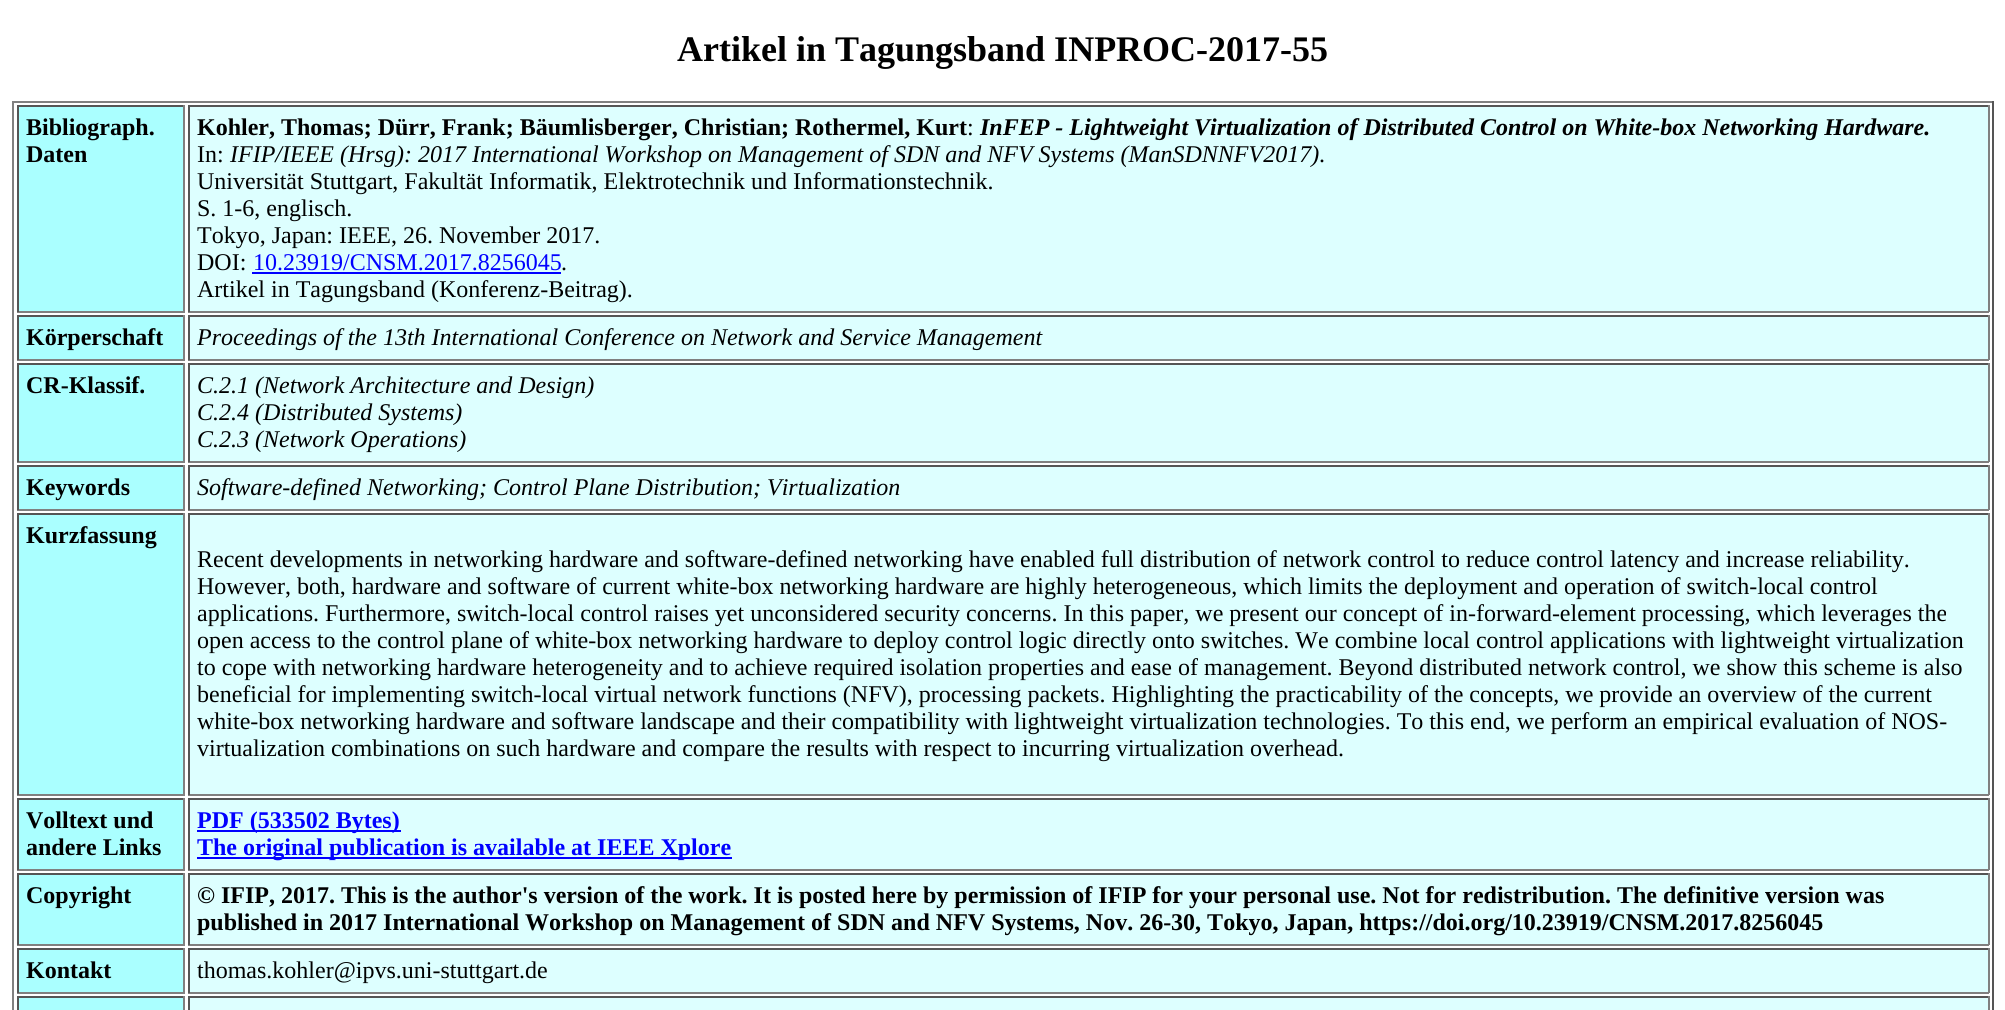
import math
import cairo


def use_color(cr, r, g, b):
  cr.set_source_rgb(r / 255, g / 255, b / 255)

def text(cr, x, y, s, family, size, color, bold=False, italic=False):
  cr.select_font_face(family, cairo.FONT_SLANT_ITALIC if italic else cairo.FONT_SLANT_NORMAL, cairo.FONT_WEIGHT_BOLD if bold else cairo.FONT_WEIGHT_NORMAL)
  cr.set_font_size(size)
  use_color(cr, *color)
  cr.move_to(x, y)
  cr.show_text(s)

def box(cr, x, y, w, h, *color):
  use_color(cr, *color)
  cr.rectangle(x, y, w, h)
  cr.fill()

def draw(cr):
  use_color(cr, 255, 255, 255)
  cr.paint()
  box(cr, 12, 101, 1982, 2, 128, 128, 128)
  box(cr, 1992, 101, 2, 909, 85, 85, 85)
  box(cr, 12, 101, 2, 909, 128, 128, 128)
  box(cr, 19, 107, 164, 204, 170, 255, 255)
  box(cr, 17, 105, 168, 2, 85, 85, 85)
  box(cr, 183, 105, 2, 207, 128, 128, 128)
  box(cr, 17, 311, 168, 2, 128, 128, 128)
  box(cr, 17, 105, 2, 207, 85, 85, 85)
  box(cr, 190, 107, 1798, 204, 221, 255, 255)
  box(cr, 188, 105, 1801, 2, 85, 85, 85)
  box(cr, 1988, 105, 2, 207, 128, 128, 128)
  box(cr, 188, 311, 1801, 2, 128, 128, 128)
  box(cr, 188, 105, 2, 207, 85, 85, 85)
  box(cr, 252, 272, 309, 2, 0, 0, 255)
  box(cr, 19, 317, 164, 42, 170, 255, 255)
  box(cr, 17, 315, 168, 2, 85, 85, 85)
  box(cr, 183, 315, 2, 45, 128, 128, 128)
  box(cr, 17, 359, 168, 2, 128, 128, 128)
  box(cr, 17, 315, 2, 45, 85, 85, 85)
  box(cr, 190, 317, 1798, 42, 221, 255, 255)
  box(cr, 188, 315, 1801, 2, 85, 85, 85)
  box(cr, 1988, 315, 2, 45, 128, 128, 128)
  box(cr, 188, 359, 1801, 2, 128, 128, 128)
  box(cr, 188, 315, 2, 45, 85, 85, 85)
  box(cr, 19, 365, 164, 96, 170, 255, 255)
  box(cr, 17, 363, 168, 2, 85, 85, 85)
  box(cr, 183, 363, 2, 99, 128, 128, 128)
  box(cr, 17, 461, 168, 2, 128, 128, 128)
  box(cr, 17, 363, 2, 99, 85, 85, 85)
  box(cr, 190, 365, 1798, 96, 221, 255, 255)
  box(cr, 188, 363, 1801, 2, 85, 85, 85)
  box(cr, 1988, 363, 2, 99, 128, 128, 128)
  box(cr, 188, 461, 1801, 2, 128, 128, 128)
  box(cr, 188, 363, 2, 99, 85, 85, 85)
  box(cr, 19, 467, 164, 42, 170, 255, 255)
  box(cr, 17, 465, 168, 2, 85, 85, 85)
  box(cr, 183, 465, 2, 45, 128, 128, 128)
  box(cr, 17, 509, 168, 2, 128, 128, 128)
  box(cr, 17, 465, 2, 45, 85, 85, 85)
  box(cr, 190, 467, 1798, 42, 221, 255, 255)
  box(cr, 188, 465, 1801, 2, 85, 85, 85)
  box(cr, 1988, 465, 2, 45, 128, 128, 128)
  box(cr, 188, 509, 1801, 2, 128, 128, 128)
  box(cr, 188, 465, 2, 45, 85, 85, 85)
  box(cr, 19, 515, 164, 279, 170, 255, 255)
  box(cr, 17, 513, 168, 2, 85, 85, 85)
  box(cr, 183, 513, 2, 282, 128, 128, 128)
  box(cr, 17, 794, 168, 2, 128, 128, 128)
  box(cr, 17, 513, 2, 282, 85, 85, 85)
  box(cr, 190, 515, 1798, 279, 221, 255, 255)
  box(cr, 188, 513, 1801, 2, 85, 85, 85)
  box(cr, 1988, 513, 2, 282, 128, 128, 128)
  box(cr, 188, 794, 1801, 2, 128, 128, 128)
  box(cr, 188, 513, 2, 282, 85, 85, 85)
  box(cr, 19, 800, 164, 69, 170, 255, 255)
  box(cr, 17, 798, 168, 2, 85, 85, 85)
  box(cr, 183, 798, 2, 72, 128, 128, 128)
  box(cr, 17, 869, 168, 2, 128, 128, 128)
  box(cr, 17, 798, 2, 72, 85, 85, 85)
  box(cr, 190, 800, 1798, 69, 221, 255, 255)
  box(cr, 188, 798, 1801, 2, 85, 85, 85)
  box(cr, 1988, 798, 2, 72, 128, 128, 128)
  box(cr, 188, 869, 1801, 2, 128, 128, 128)
  box(cr, 188, 798, 2, 72, 85, 85, 85)
  box(cr, 197, 830, 204, 2, 0, 0, 255)
  box(cr, 197, 857, 535, 2, 0, 0, 255)
  box(cr, 19, 875, 164, 69, 170, 255, 255)
  box(cr, 17, 873, 168, 2, 85, 85, 85)
  box(cr, 183, 873, 2, 72, 128, 128, 128)
  box(cr, 17, 944, 168, 2, 128, 128, 128)
  box(cr, 17, 873, 2, 72, 85, 85, 85)
  box(cr, 190, 875, 1798, 69, 221, 255, 255)
  box(cr, 188, 873, 1801, 2, 85, 85, 85)
  box(cr, 1988, 873, 2, 72, 128, 128, 128)
  box(cr, 188, 944, 1801, 2, 128, 128, 128)
  box(cr, 188, 873, 2, 72, 85, 85, 85)
  box(cr, 19, 950, 164, 42, 170, 255, 255)
  box(cr, 17, 948, 168, 2, 85, 85, 85)
  box(cr, 183, 948, 2, 45, 128, 128, 128)
  box(cr, 17, 992, 168, 2, 128, 128, 128)
  box(cr, 17, 948, 2, 45, 85, 85, 85)
  box(cr, 190, 950, 1798, 42, 221, 255, 255)
  box(cr, 188, 948, 1801, 2, 85, 85, 85)
  box(cr, 1988, 948, 2, 45, 128, 128, 128)
  box(cr, 188, 992, 1801, 2, 128, 128, 128)
  box(cr, 188, 948, 2, 45, 85, 85, 85)
  box(cr, 19, 998, 164, 12, 170, 255, 255)
  box(cr, 17, 996, 168, 2, 85, 85, 85)
  box(cr, 183, 996, 2, 14, 128, 128, 128)
  box(cr, 17, 996, 2, 14, 85, 85, 85)
  box(cr, 190, 998, 1798, 12, 221, 255, 255)
  box(cr, 188, 996, 1801, 2, 85, 85, 85)
  box(cr, 1988, 996, 2, 14, 128, 128, 128)
  box(cr, 188, 996, 2, 14, 85, 85, 85)
  text(cr, 677, 61, "Artikel in Tagungsband INPROC-2017-55", "Liberation Serif", 36, (0, 0, 0), bold=True)
  text(cr, 26, 135, "Bibliograph.", "Liberation Serif", 24, (0, 0, 0), bold=True)
  text(cr, 26, 162, "Daten", "Liberation Serif", 24, (0, 0, 0), bold=True)
  text(cr, 197, 135, "Kohler, Thomas; Dürr, Frank; Bäumlisberger, Christian; Rothermel, Kurt", "Liberation Serif", 24, (0, 0, 0), bold=True)
  text(cr, 967, 135, ":", "Liberation Serif", 24, (0, 0, 0))
  text(cr, 980, 135, "InFEP - Lightweight Virtualization of Distributed Control on White-box Networking Hardware.", "Liberation Serif", 24, (0, 0, 0), bold=True, italic=True)
  text(cr, 197, 162, "In:", "Liberation Serif", 24, (0, 0, 0))
  text(cr, 230, 162, "IFIP/IEEE (Hrsg): 2017 International Workshop on Management of SDN and NFV Systems (ManSDNNFV2017)", "Liberation Serif", 24, (0, 0, 0), italic=True)
  text(cr, 1319, 162, ".", "Liberation Serif", 24, (0, 0, 0))
  text(cr, 197, 189, "Universität Stuttgart, Fakultät Informatik, Elektrotechnik und Informationstechnik.", "Liberation Serif", 24, (0, 0, 0))
  text(cr, 197, 216, "S. 1-6, englisch.", "Liberation Serif", 24, (0, 0, 0))
  text(cr, 197, 243, "Tokyo, Japan: IEEE, 26. November 2017.", "Liberation Serif", 24, (0, 0, 0))
  text(cr, 197, 270, "DOI:", "Liberation Serif", 24, (0, 0, 0))
  text(cr, 253, 270, "10.23919/CNSM.2017.8256045", "Liberation Serif", 24, (0, 0, 255))
  text(cr, 561, 270, ".", "Liberation Serif", 24, (0, 0, 0))
  text(cr, 197, 297, "Artikel in Tagungsband (Konferenz-Beitrag).", "Liberation Serif", 24, (0, 0, 0))
  text(cr, 26, 345, "Körperschaft", "Liberation Serif", 24, (0, 0, 0), bold=True)
  text(cr, 197, 345, "Proceedings of the 13th International Conference on Network and Service Management", "Liberation Serif", 24, (0, 0, 0), italic=True)
  text(cr, 26, 393, "CR-Klassif.", "Liberation Serif", 24, (0, 0, 0), bold=True)
  text(cr, 197, 393, "C.2.1 (Network Architecture and Design)", "Liberation Serif", 24, (0, 0, 0), italic=True)
  text(cr, 197, 420, "C.2.4 (Distributed Systems)", "Liberation Serif", 24, (0, 0, 0), italic=True)
  text(cr, 197, 447, "C.2.3 (Network Operations)", "Liberation Serif", 24, (0, 0, 0), italic=True)
  text(cr, 26, 495, "Keywords", "Liberation Serif", 24, (0, 0, 0), bold=True)
  text(cr, 197, 495, "Software-defined Networking; Control Plane Distribution; Virtualization", "Liberation Serif", 24, (0, 0, 0), italic=True)
  text(cr, 26, 543, "Kurzfassung", "Liberation Serif", 24, (0, 0, 0), bold=True)
  text(cr, 197, 567, "Recent developments in networking hardware and software-defined networking have enabled full distribution of network control to reduce control latency and increase reliability.", "Liberation Serif", 24, (0, 0, 0))
  text(cr, 197, 594, "However, both, hardware and software of current white-box networking hardware are highly heterogeneous, which limits the deployment and operation of switch-local control", "Liberation Serif", 24, (0, 0, 0))
  text(cr, 197, 621, "applications. Furthermore, switch-local control raises yet unconsidered security concerns. In this paper, we present our concept of in-forward-element processing, which leverages the", "Liberation Serif", 24, (0, 0, 0))
  text(cr, 197, 648, "open access to the control plane of white-box networking hardware to deploy control logic directly onto switches. We combine local control applications with lightweight virtualization", "Liberation Serif", 24, (0, 0, 0))
  text(cr, 197, 675, "to cope with networking hardware heterogeneity and to achieve required isolation properties and ease of management. Beyond distributed network control, we show this scheme is also", "Liberation Serif", 24, (0, 0, 0))
  text(cr, 197, 702, "beneficial for implementing switch-local virtual network functions (NFV), processing packets. Highlighting the practicability of the concepts, we provide an overview of the current", "Liberation Serif", 24, (0, 0, 0))
  text(cr, 197, 729, "white-box networking hardware and software landscape and their compatibility with lightweight virtualization technologies. To this end, we perform an empirical evaluation of NOS-", "Liberation Serif", 24, (0, 0, 0))
  text(cr, 197, 756, "virtualization combinations on such hardware and compare the results with respect to incurring virtualization overhead.", "Liberation Serif", 24, (0, 0, 0))
  text(cr, 26, 828, "Volltext und", "Liberation Serif", 24, (0, 0, 0), bold=True)
  text(cr, 26, 855, "andere Links", "Liberation Serif", 24, (0, 0, 0), bold=True)
  text(cr, 197, 828, "PDF (533502 Bytes)", "Liberation Serif", 24, (0, 0, 255), bold=True)
  text(cr, 197, 855, "The original publication is available at IEEE Xplore", "Liberation Serif", 24, (0, 0, 255), bold=True)
  text(cr, 26, 903, "Copyright", "Liberation Serif", 24, (0, 0, 0), bold=True)
  text(cr, 197, 903, "© IFIP, 2017. This is the author's version of the work. It is posted here by permission of IFIP for your personal use. Not for redistribution. The definitive version was", "Liberation Serif", 24, (0, 0, 0), bold=True)
  text(cr, 197, 930, "published in 2017 International Workshop on Management of SDN and NFV Systems, Nov. 26-30, Tokyo, Japan, https://doi.org/10.23919/CNSM.2017.8256045", "Liberation Serif", 24, (0, 0, 0), bold=True)
  text(cr, 26, 978, "Kontakt", "Liberation Serif", 24, (0, 0, 0), bold=True)
  text(cr, 197, 978, "thomas.kohler@ipvs.uni-stuttgart.de", "Liberation Serif", 24, (0, 0, 0))


surface = cairo.ImageSurface(cairo.FORMAT_RGB24, 2005, 1010)
cr = cairo.Context(surface)
options = cairo.FontOptions()
options.set_hint_metrics(cairo.HINT_METRICS_OFF)
options.set_hint_style(cairo.HINT_STYLE_NONE)
cr.set_font_options(options)
cr.set_miter_limit(4)
draw(cr)
surface.write_to_png("out.png")
